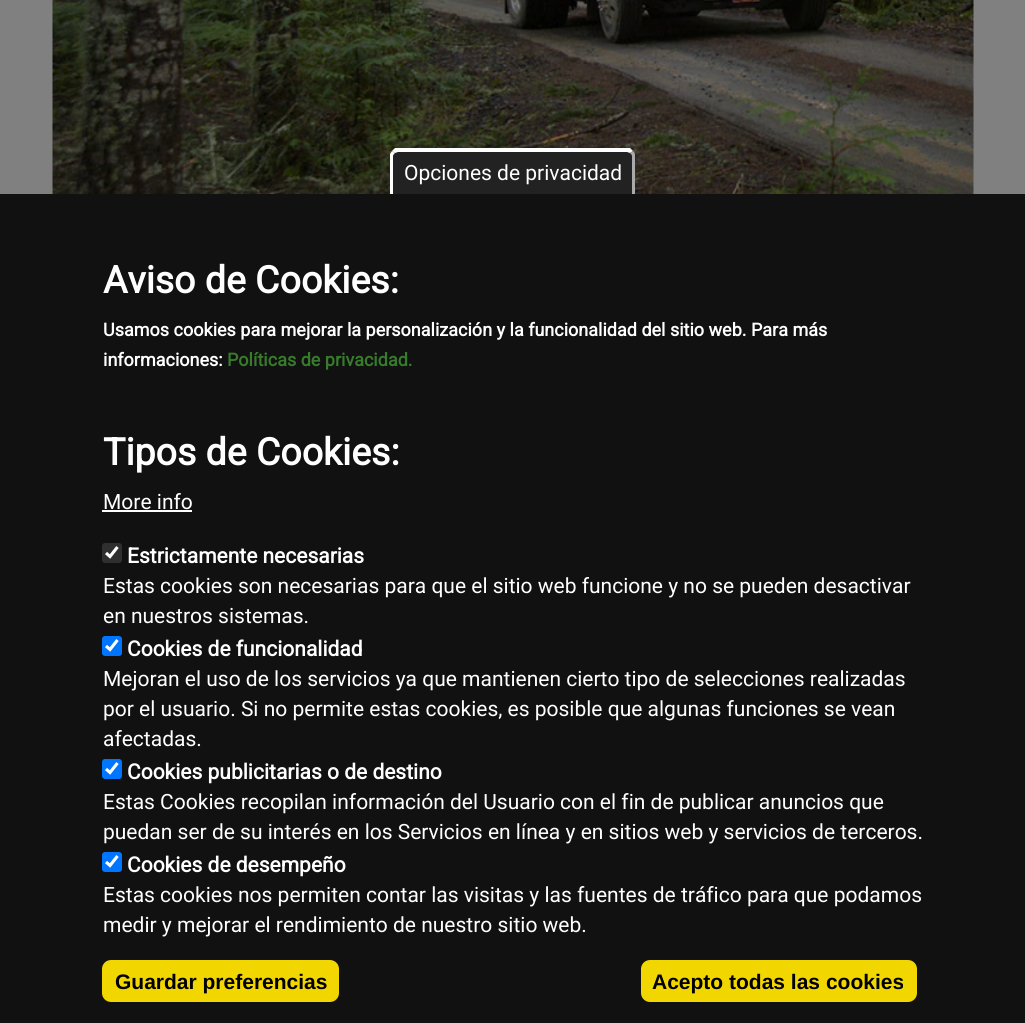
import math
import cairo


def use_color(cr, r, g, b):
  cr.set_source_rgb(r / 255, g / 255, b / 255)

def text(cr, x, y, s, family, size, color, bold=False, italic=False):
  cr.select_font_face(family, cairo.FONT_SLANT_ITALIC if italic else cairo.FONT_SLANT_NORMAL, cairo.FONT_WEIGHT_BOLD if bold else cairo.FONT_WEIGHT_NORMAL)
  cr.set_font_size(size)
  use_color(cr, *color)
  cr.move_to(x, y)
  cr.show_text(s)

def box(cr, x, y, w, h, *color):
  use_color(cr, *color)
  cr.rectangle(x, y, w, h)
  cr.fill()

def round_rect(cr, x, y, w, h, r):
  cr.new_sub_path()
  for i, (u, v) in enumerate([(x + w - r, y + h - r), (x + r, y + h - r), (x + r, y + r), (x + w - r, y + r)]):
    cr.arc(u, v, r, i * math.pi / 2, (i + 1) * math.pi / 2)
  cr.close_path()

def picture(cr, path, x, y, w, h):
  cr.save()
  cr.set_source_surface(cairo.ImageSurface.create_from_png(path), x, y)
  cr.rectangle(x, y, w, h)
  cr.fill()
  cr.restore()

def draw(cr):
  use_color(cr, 128, 128, 128)
  cr.paint()
  picture(cr, "img_01.png", 52, 0, 922, 194)
  box(cr, 0, 194, 1025, 829, 17, 17, 17)
  use_color(cr, 34, 34, 34)
  cr.new_path()
  cr.move_to(398, 149)
  cr.line_to(627, 149)
  cr.curve_to(631.5, 149, 635, 152.5, 635, 157)
  cr.line_to(635, 194)
  cr.line_to(390, 194)
  cr.line_to(390, 157)
  cr.curve_to(390, 152.5, 393.5, 149, 398, 149)
  cr.close_path()
  cr.fill()
  use_color(cr, 255, 255, 255)
  cr.new_path()
  cr.move_to(398, 152)
  cr.line_to(395, 153)
  cr.line_to(392, 151)
  cr.line_to(395, 148)
  cr.line_to(630, 148)
  cr.line_to(633, 151)
  cr.line_to(630, 153)
  cr.line_to(627, 152)
  cr.close_path()
  cr.fill()
  use_color(cr, 170, 170, 170)
  cr.new_path()
  cr.move_to(632, 194)
  cr.line_to(632, 156)
  cr.curve_to(632, 155, 631, 154, 630, 153)
  cr.line_to(633, 151)
  cr.curve_to(634, 152, 635, 153, 635, 155)
  cr.line_to(635, 194)
  cr.close_path()
  cr.fill()
  use_color(cr, 255, 255, 255)
  cr.new_path()
  cr.move_to(390, 194)
  cr.line_to(390, 154)
  cr.line_to(392, 151)
  cr.line_to(395, 153)
  cr.curve_to(394, 154, 393, 155, 393, 156)
  cr.line_to(393, 194)
  cr.close_path()
  cr.fill()
  box(cr, 102, 510, 90, 2, 255, 255, 255)
  use_color(cr, 47, 47, 47)
  round_rect(cr, 102, 543, 20, 20, 3)
  cr.fill()
  cr.new_path()
  cr.move_to(106, 553)
  cr.line_to(110, 556.5)
  cr.line_to(117.5, 547)
  use_color(cr, 255, 255, 255)
  cr.set_line_width(3.1)
  cr.stroke()
  use_color(cr, 0, 117, 255)
  round_rect(cr, 102, 636, 20, 20, 3)
  cr.fill()
  cr.new_path()
  cr.move_to(106, 646)
  cr.line_to(110, 649.5)
  cr.line_to(117.5, 640)
  use_color(cr, 255, 255, 255)
  cr.stroke()
  use_color(cr, 0, 117, 255)
  round_rect(cr, 102, 759, 20, 20, 3)
  cr.fill()
  cr.new_path()
  cr.move_to(106, 769)
  cr.line_to(110, 772.5)
  cr.line_to(117.5, 763)
  use_color(cr, 255, 255, 255)
  cr.stroke()
  use_color(cr, 0, 117, 255)
  round_rect(cr, 102, 852, 20, 20, 3)
  cr.fill()
  cr.new_path()
  cr.move_to(106, 862)
  cr.line_to(110, 865.5)
  cr.line_to(117.5, 856)
  use_color(cr, 255, 255, 255)
  cr.stroke()
  use_color(cr, 241, 214, 0)
  round_rect(cr, 102, 960, 237, 42, 9)
  cr.fill()
  round_rect(cr, 641, 960, 276, 42, 9)
  cr.fill()
  text(cr, 404, 180, "Opciones de privacidad", "Roboto", 21, (255, 255, 255))
  text(cr, 103, 293, "Aviso de Cookies:", "Roboto", 37.5, (255, 255, 255), bold=True)
  text(cr, 103, 336, "Usamos cookies para mejorar la personalización y la funcionalidad del sitio web. Para más", "Roboto", 18, (255, 255, 255), bold=True)
  text(cr, 103, 366, "informaciones:", "Roboto", 18, (255, 255, 255), bold=True)
  text(cr, 227, 366, "Políticas de privacidad.", "Roboto", 18, (55, 124, 43), bold=True)
  text(cr, 103, 465, "Tipos de Cookies:", "Roboto", 37.5, (255, 255, 255), bold=True)
  text(cr, 103, 509, "More info", "Roboto", 21, (255, 255, 255))
  text(cr, 127, 563, "Estrictamente necesarias", "Roboto", 21, (255, 255, 255), bold=True)
  text(cr, 103, 593, "Estas cookies son necesarias para que el sitio web funcione y no se pueden desactivar", "Roboto", 21, (255, 255, 255))
  text(cr, 103, 623, "en nuestros sistemas.", "Roboto", 21, (255, 255, 255))
  text(cr, 127, 656, "Cookies de funcionalidad", "Roboto", 21, (255, 255, 255), bold=True)
  text(cr, 103, 686, "Mejoran el uso de los servicios ya que mantienen cierto tipo de selecciones realizadas", "Roboto", 21, (255, 255, 255))
  text(cr, 103, 716, "por el usuario. Si no permite estas cookies, es posible que algunas funciones se vean", "Roboto", 21, (255, 255, 255))
  text(cr, 103, 746, "afectadas.", "Roboto", 21, (255, 255, 255))
  text(cr, 127, 779, "Cookies publicitarias o de destino", "Roboto", 21, (255, 255, 255), bold=True)
  text(cr, 103, 809, "Estas Cookies recopilan información del Usuario con el fin de publicar anuncios que", "Roboto", 21, (255, 255, 255))
  text(cr, 103, 839, "puedan ser de su interés en los Servicios en línea y en sitios web y servicios de terceros.", "Roboto", 21, (255, 255, 255))
  text(cr, 127, 872, "Cookies de desempeño", "Roboto", 21, (255, 255, 255), bold=True)
  text(cr, 103, 902, "Estas cookies nos permiten contar las visitas y las fuentes de tráfico para que podamos", "Roboto", 21, (255, 255, 255))
  text(cr, 103, 932, "medir y mejorar el rendimiento de nuestro sitio web.", "Roboto", 21, (255, 255, 255))
  text(cr, 115, 989, "Guardar preferencias", "Liberation Sans", 21, (0, 0, 0), bold=True)
  text(cr, 652, 989, "Acepto todas las cookies", "Liberation Sans", 21, (0, 0, 0), bold=True)


surface = cairo.ImageSurface(cairo.FORMAT_RGB24, 1025, 1023)
cr = cairo.Context(surface)
options = cairo.FontOptions()
options.set_hint_metrics(cairo.HINT_METRICS_OFF)
options.set_hint_style(cairo.HINT_STYLE_NONE)
cr.set_font_options(options)
cr.set_miter_limit(4)
draw(cr)
surface.write_to_png("out.png")
